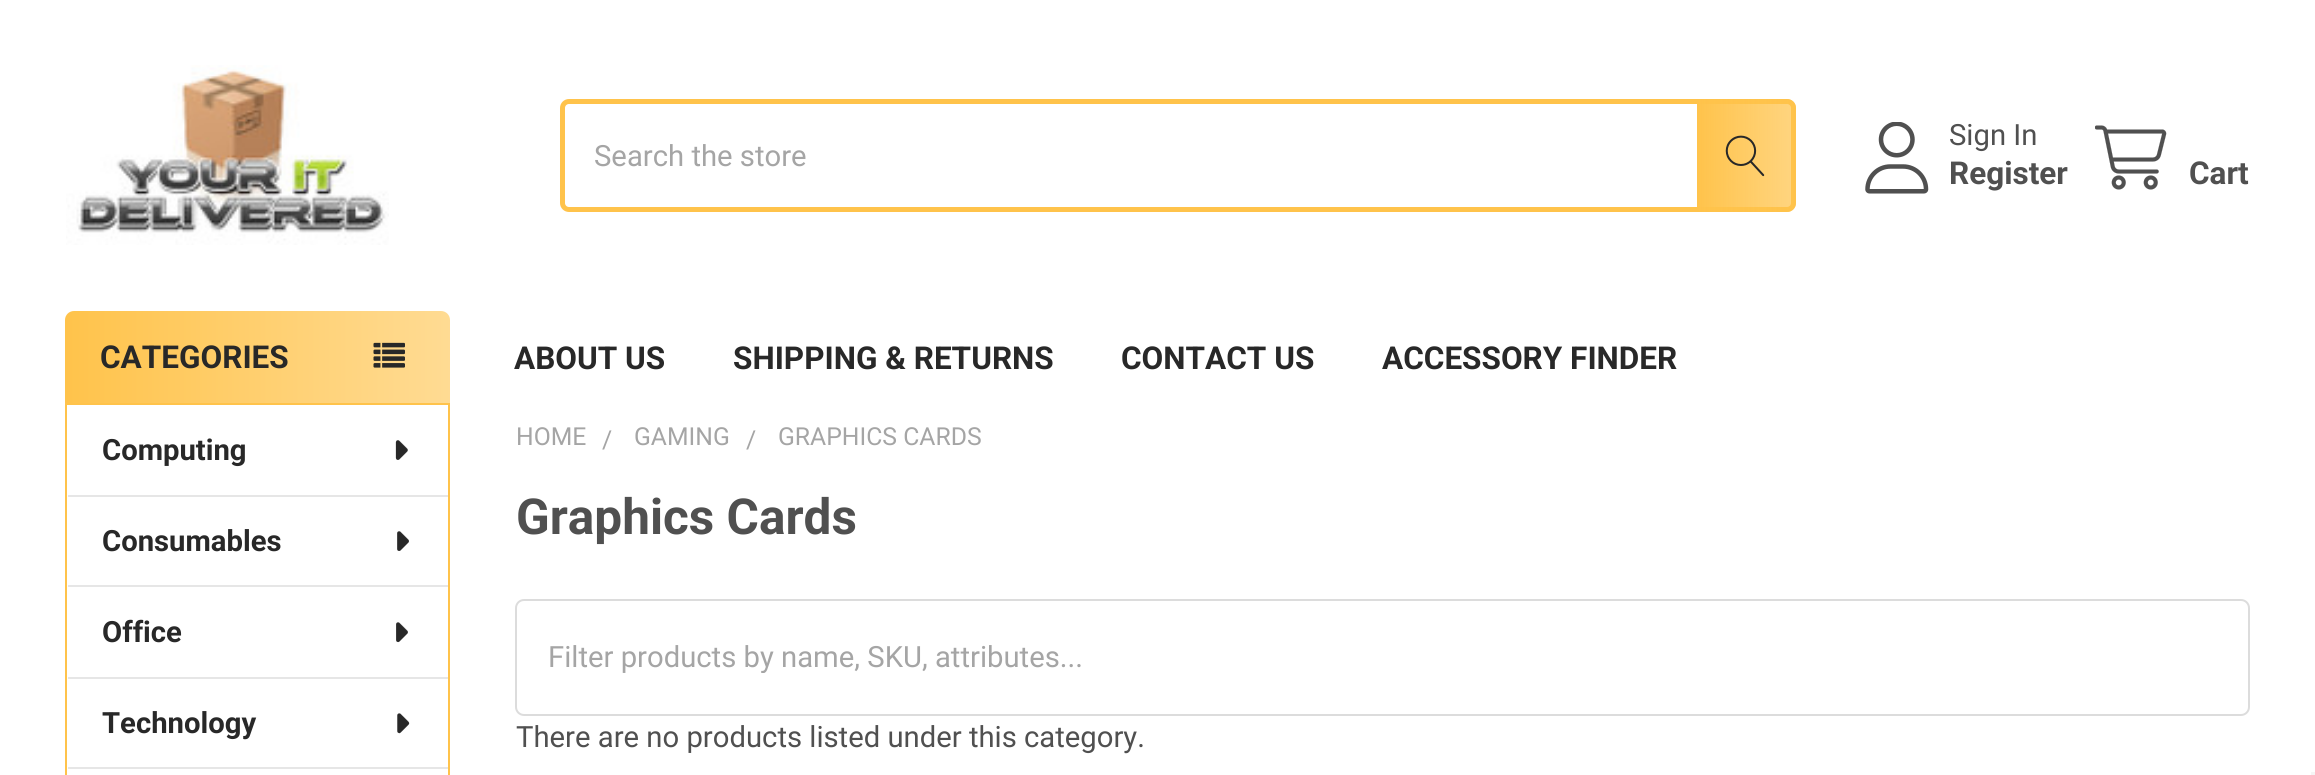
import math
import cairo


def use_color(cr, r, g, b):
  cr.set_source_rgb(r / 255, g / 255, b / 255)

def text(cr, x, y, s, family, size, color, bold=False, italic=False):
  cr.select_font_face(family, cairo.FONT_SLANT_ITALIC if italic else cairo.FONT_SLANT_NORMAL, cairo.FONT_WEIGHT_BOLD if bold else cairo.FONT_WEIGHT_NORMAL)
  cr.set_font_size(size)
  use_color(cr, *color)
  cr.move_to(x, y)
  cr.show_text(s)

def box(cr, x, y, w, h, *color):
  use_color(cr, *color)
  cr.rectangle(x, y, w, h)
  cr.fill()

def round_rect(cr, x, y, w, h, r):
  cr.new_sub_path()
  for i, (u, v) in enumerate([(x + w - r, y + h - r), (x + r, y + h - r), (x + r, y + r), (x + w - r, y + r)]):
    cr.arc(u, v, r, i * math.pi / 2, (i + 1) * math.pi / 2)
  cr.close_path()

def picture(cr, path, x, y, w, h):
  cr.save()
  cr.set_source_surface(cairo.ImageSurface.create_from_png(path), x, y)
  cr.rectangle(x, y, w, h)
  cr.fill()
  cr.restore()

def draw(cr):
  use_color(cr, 255, 255, 255)
  cr.paint()
  picture(cr, "img_01.png", 66, 65, 323, 180)
  round_rect(cr, 562.5, 101.5, 1231, 108, 6.5)
  use_color(cr, 255, 195, 75)
  cr.set_line_width(5)
  cr.stroke()
  gradient = cairo.LinearGradient(1697, 155, 1796, 155)
  gradient.add_color_stop_rgba(0, 1, 0.765, 0.294, 1)
  gradient.add_color_stop_rgba(1, 1, 0.765, 0.294, 0.7)
  cr.set_source(gradient)
  cr.new_path()
  cr.move_to(1697, 99)
  cr.line_to(1787, 99)
  cr.curve_to(1792, 99, 1796, 103, 1796, 108)
  cr.line_to(1796, 203)
  cr.curve_to(1796, 208, 1792, 212, 1787, 212)
  cr.line_to(1697, 212)
  cr.close_path()
  cr.fill()
  picture(cr, "img_02.png", 1725, 135, 40, 42)
  picture(cr, "img_03.png", 1865, 122, 64, 72)
  picture(cr, "img_04.png", 2095, 125, 72, 65)
  gradient = cairo.LinearGradient(65, 722, 450, 722)
  gradient.add_color_stop_rgba(0, 1, 0.765, 0.294, 1)
  gradient.add_color_stop_rgba(1, 1, 0.859, 0.576, 1)
  cr.set_source(gradient)
  round_rect(cr, 65, 311, 385, 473, 9)
  cr.fill()
  picture(cr, "img_05.png", 373, 342, 32, 26)
  use_color(cr, 255, 255, 255)
  cr.rectangle(66, 404, 383, 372)
  cr.fill_preserve()
  use_color(cr, 255, 195, 75)
  cr.set_line_width(2)
  cr.stroke()
  picture(cr, "img_06.png", 395, 440, 13, 20)
  box(cr, 68, 495, 380, 2, 230, 230, 230)
  picture(cr, "img_07.png", 397, 531, 12, 20)
  box(cr, 68, 585, 380, 2, 230, 230, 230)
  picture(cr, "img_08.png", 396, 622, 12, 21)
  box(cr, 68, 677, 380, 2, 230, 230, 230)
  picture(cr, "img_09.png", 397, 713, 13, 21)
  box(cr, 68, 767, 380, 2, 230, 230, 230)
  round_rect(cr, 516, 600, 1733, 115, 8)
  use_color(cr, 220, 220, 220)
  cr.stroke()
  box(cr, 2311, 772, 4, 3, 245, 245, 245)
  text(cr, 594, 166, "Search the store", "Roboto", 29.25, (165, 165, 165))
  text(cr, 1949, 145, "Sign In", "Roboto", 29.25, (80, 80, 80))
  text(cr, 1949, 184, "Register", "Roboto", 31.5, (80, 80, 80), bold=True)
  text(cr, 2189, 184, "Cart", "Roboto", 31.5, (80, 80, 80), bold=True)
  text(cr, 514, 369, "ABOUT US", "Roboto", 31.5, (40, 40, 40), bold=True)
  text(cr, 733, 369, "SHIPPING & RETURNS", "Roboto", 31.5, (40, 40, 40), bold=True)
  text(cr, 1121, 369, "CONTACT US", "Roboto", 31.5, (40, 40, 40), bold=True)
  text(cr, 1382, 369, "ACCESSORY FINDER", "Roboto", 31.5, (40, 40, 40), bold=True)
  text(cr, 100, 368, "CATEGORIES", "Roboto", 31.5, (40, 40, 40), bold=True)
  text(cr, 102, 460, "Computing", "Roboto", 29.25, (40, 40, 40), bold=True)
  text(cr, 102, 551, "Consumables", "Roboto", 29.25, (40, 40, 40), bold=True)
  text(cr, 102, 642, "Office", "Roboto", 29.25, (40, 40, 40), bold=True)
  text(cr, 102, 733, "Technology", "Roboto", 29.25, (40, 40, 40), bold=True)
  text(cr, 516, 445, "HOME", "Roboto", 24.75, (165, 165, 165))
  text(cr, 602, 448, "/", "Roboto", 24.75, (165, 165, 165))
  text(cr, 634, 445, "GAMING", "Roboto", 24.75, (165, 165, 165))
  text(cr, 746, 448, "/", "Roboto", 24.75, (165, 165, 165))
  text(cr, 778, 445, "GRAPHICS CARDS", "Roboto", 24.75, (165, 165, 165))
  text(cr, 516, 534, "Graphics Cards", "Roboto", 49.5, (80, 80, 80), bold=True)
  cr.save()
  cr.rectangle(547, 639, 1672, 34)
  cr.clip()
  text(cr, 548, 667, "Filter products by name, SKU, attributes...", "Roboto", 29.25, (165, 165, 165))
  cr.restore()
  text(cr, 516, 747, "There are no products listed under this category.", "Roboto", 29.25, (80, 80, 80))


surface = cairo.ImageSurface(cairo.FORMAT_RGB24, 2315, 775)
cr = cairo.Context(surface)
options = cairo.FontOptions()
options.set_hint_metrics(cairo.HINT_METRICS_OFF)
options.set_hint_style(cairo.HINT_STYLE_NONE)
cr.set_font_options(options)
cr.set_miter_limit(4)
draw(cr)
surface.write_to_png("out.png")
